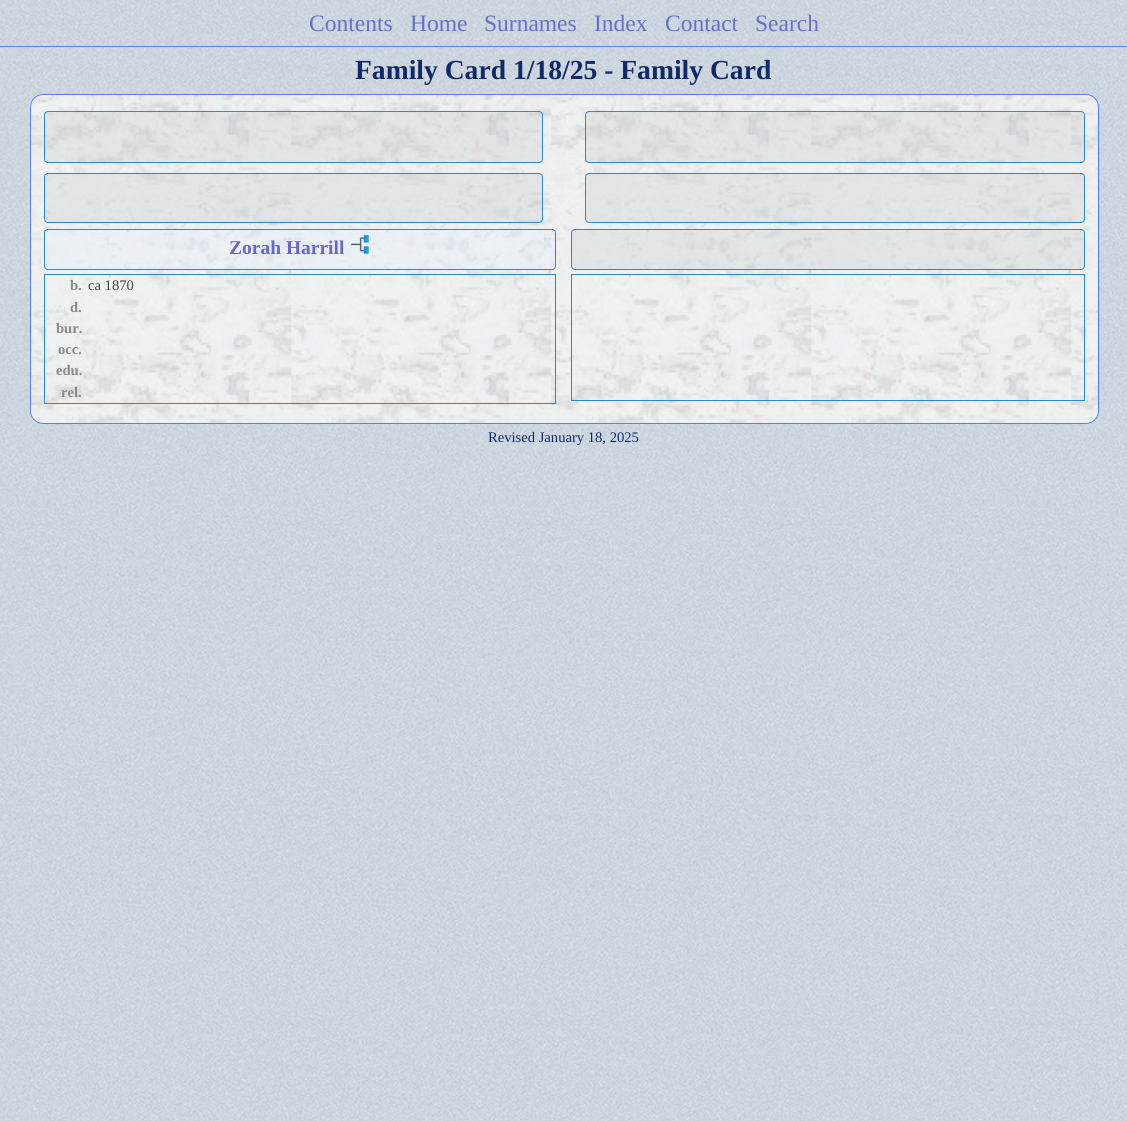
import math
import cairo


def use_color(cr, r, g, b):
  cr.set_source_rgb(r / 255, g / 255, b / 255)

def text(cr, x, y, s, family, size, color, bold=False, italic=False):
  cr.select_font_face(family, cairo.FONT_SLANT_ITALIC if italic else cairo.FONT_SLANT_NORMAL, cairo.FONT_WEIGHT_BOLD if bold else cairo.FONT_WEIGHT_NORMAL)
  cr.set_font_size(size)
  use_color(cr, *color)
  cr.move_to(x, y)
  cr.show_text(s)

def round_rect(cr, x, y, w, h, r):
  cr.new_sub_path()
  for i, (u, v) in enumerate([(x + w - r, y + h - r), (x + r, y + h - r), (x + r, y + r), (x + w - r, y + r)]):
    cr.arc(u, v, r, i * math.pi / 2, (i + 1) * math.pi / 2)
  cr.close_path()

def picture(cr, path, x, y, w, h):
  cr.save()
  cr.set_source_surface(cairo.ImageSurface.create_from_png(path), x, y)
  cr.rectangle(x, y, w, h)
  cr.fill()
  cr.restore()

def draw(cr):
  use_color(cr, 255, 255, 255)
  cr.paint()
  picture(cr, "img_01.png", 0, 0, 1127, 1121)
  picture(cr, "img_02.png", 0, 46, 1127, 1)
  cr.set_source_rgba(0.337, 0.494, 0.988, 0.95)
  cr.rectangle(0, 46, 1127, 1)
  cr.fill()
  picture(cr, "img_03.png", 30, 94, 1069, 330)
  round_rect(cr, 30.5, 94.5, 1068, 329, 12.5)
  use_color(cr, 86, 126, 252)
  cr.set_line_width(1)
  cr.stroke()
  cr.set_source_rgba(0.784, 0.784, 0.784, 0.3)
  round_rect(cr, 44.5, 111.5, 498, 51, 3.5)
  cr.fill_preserve()
  use_color(cr, 41, 137, 211)
  cr.stroke()
  cr.set_source_rgba(0.784, 0.784, 0.784, 0.3)
  round_rect(cr, 585.5, 111.5, 499, 51, 3.5)
  cr.fill_preserve()
  use_color(cr, 41, 137, 211)
  cr.stroke()
  cr.set_source_rgba(0.784, 0.784, 0.784, 0.3)
  round_rect(cr, 44.5, 173.5, 498, 49, 3.5)
  cr.fill_preserve()
  use_color(cr, 41, 137, 211)
  cr.stroke()
  cr.set_source_rgba(0.784, 0.784, 0.784, 0.3)
  round_rect(cr, 585.5, 173.5, 499, 49, 3.5)
  cr.fill_preserve()
  use_color(cr, 41, 137, 211)
  cr.stroke()
  cr.set_source_rgba(0.878, 0.937, 0.996, 0.3)
  round_rect(cr, 44.5, 229.5, 511, 40, 3.5)
  cr.fill_preserve()
  use_color(cr, 41, 137, 211)
  cr.stroke()
  picture(cr, "img_04.png", 351, 234, 18, 20)
  cr.set_source_rgba(0.784, 0.784, 0.784, 0.3)
  round_rect(cr, 571.5, 229.5, 513, 40, 3.5)
  cr.fill_preserve()
  use_color(cr, 41, 137, 211)
  cr.stroke()
  cr.rectangle(44.5, 274.5, 511, 129)
  cr.stroke()
  cr.rectangle(571.5, 274.5, 513, 126)
  cr.stroke()
  text(cr, 309, 31, "Contents", "Liberation Serif", 23.5, (107, 108, 205))
  text(cr, 410, 31, "Home", "Liberation Serif", 23.5, (107, 108, 205))
  text(cr, 484, 31, "Surnames", "Liberation Serif", 23.5, (107, 108, 205))
  text(cr, 594, 31, "Index", "Liberation Serif", 23.5, (107, 108, 205))
  text(cr, 665, 31, "Contact", "Liberation Serif", 23.5, (107, 108, 205))
  text(cr, 755, 31, "Search", "Liberation Serif", 23.5, (107, 108, 205))
  text(cr, 355, 79, "Family Card 1/18/25 - Family Card", "Liberation Serif", 27.6, (16, 42, 105), bold=True)
  text(cr, 229, 254, "Zorah Harrill", "Liberation Serif", 19.5, (102, 102, 204), bold=True)
  text(cr, 70, 290, "b.", "Liberation Serif", 14.6, (136, 136, 136), bold=True)
  text(cr, 88, 290, "ca 1870", "Liberation Serif", 14.6, (68, 68, 68))
  text(cr, 70, 312, "d.", "Liberation Serif", 14.6, (136, 136, 136), bold=True)
  text(cr, 56, 333, "bur.", "Liberation Serif", 14.6, (136, 136, 136), bold=True)
  text(cr, 58, 354, "occ.", "Liberation Serif", 14.6, (136, 136, 136), bold=True)
  text(cr, 56, 375, "edu.", "Liberation Serif", 14.6, (136, 136, 136), bold=True)
  text(cr, 61, 397, "rel.", "Liberation Serif", 14.6, (136, 136, 136), bold=True)
  text(cr, 488, 442, "Revised January 18, 2025", "Liberation Serif", 14.6, (16, 42, 105))


surface = cairo.ImageSurface(cairo.FORMAT_RGB24, 1127, 1121)
cr = cairo.Context(surface)
options = cairo.FontOptions()
options.set_hint_metrics(cairo.HINT_METRICS_OFF)
options.set_hint_style(cairo.HINT_STYLE_NONE)
cr.set_font_options(options)
cr.set_miter_limit(4)
draw(cr)
surface.write_to_png("out.png")
